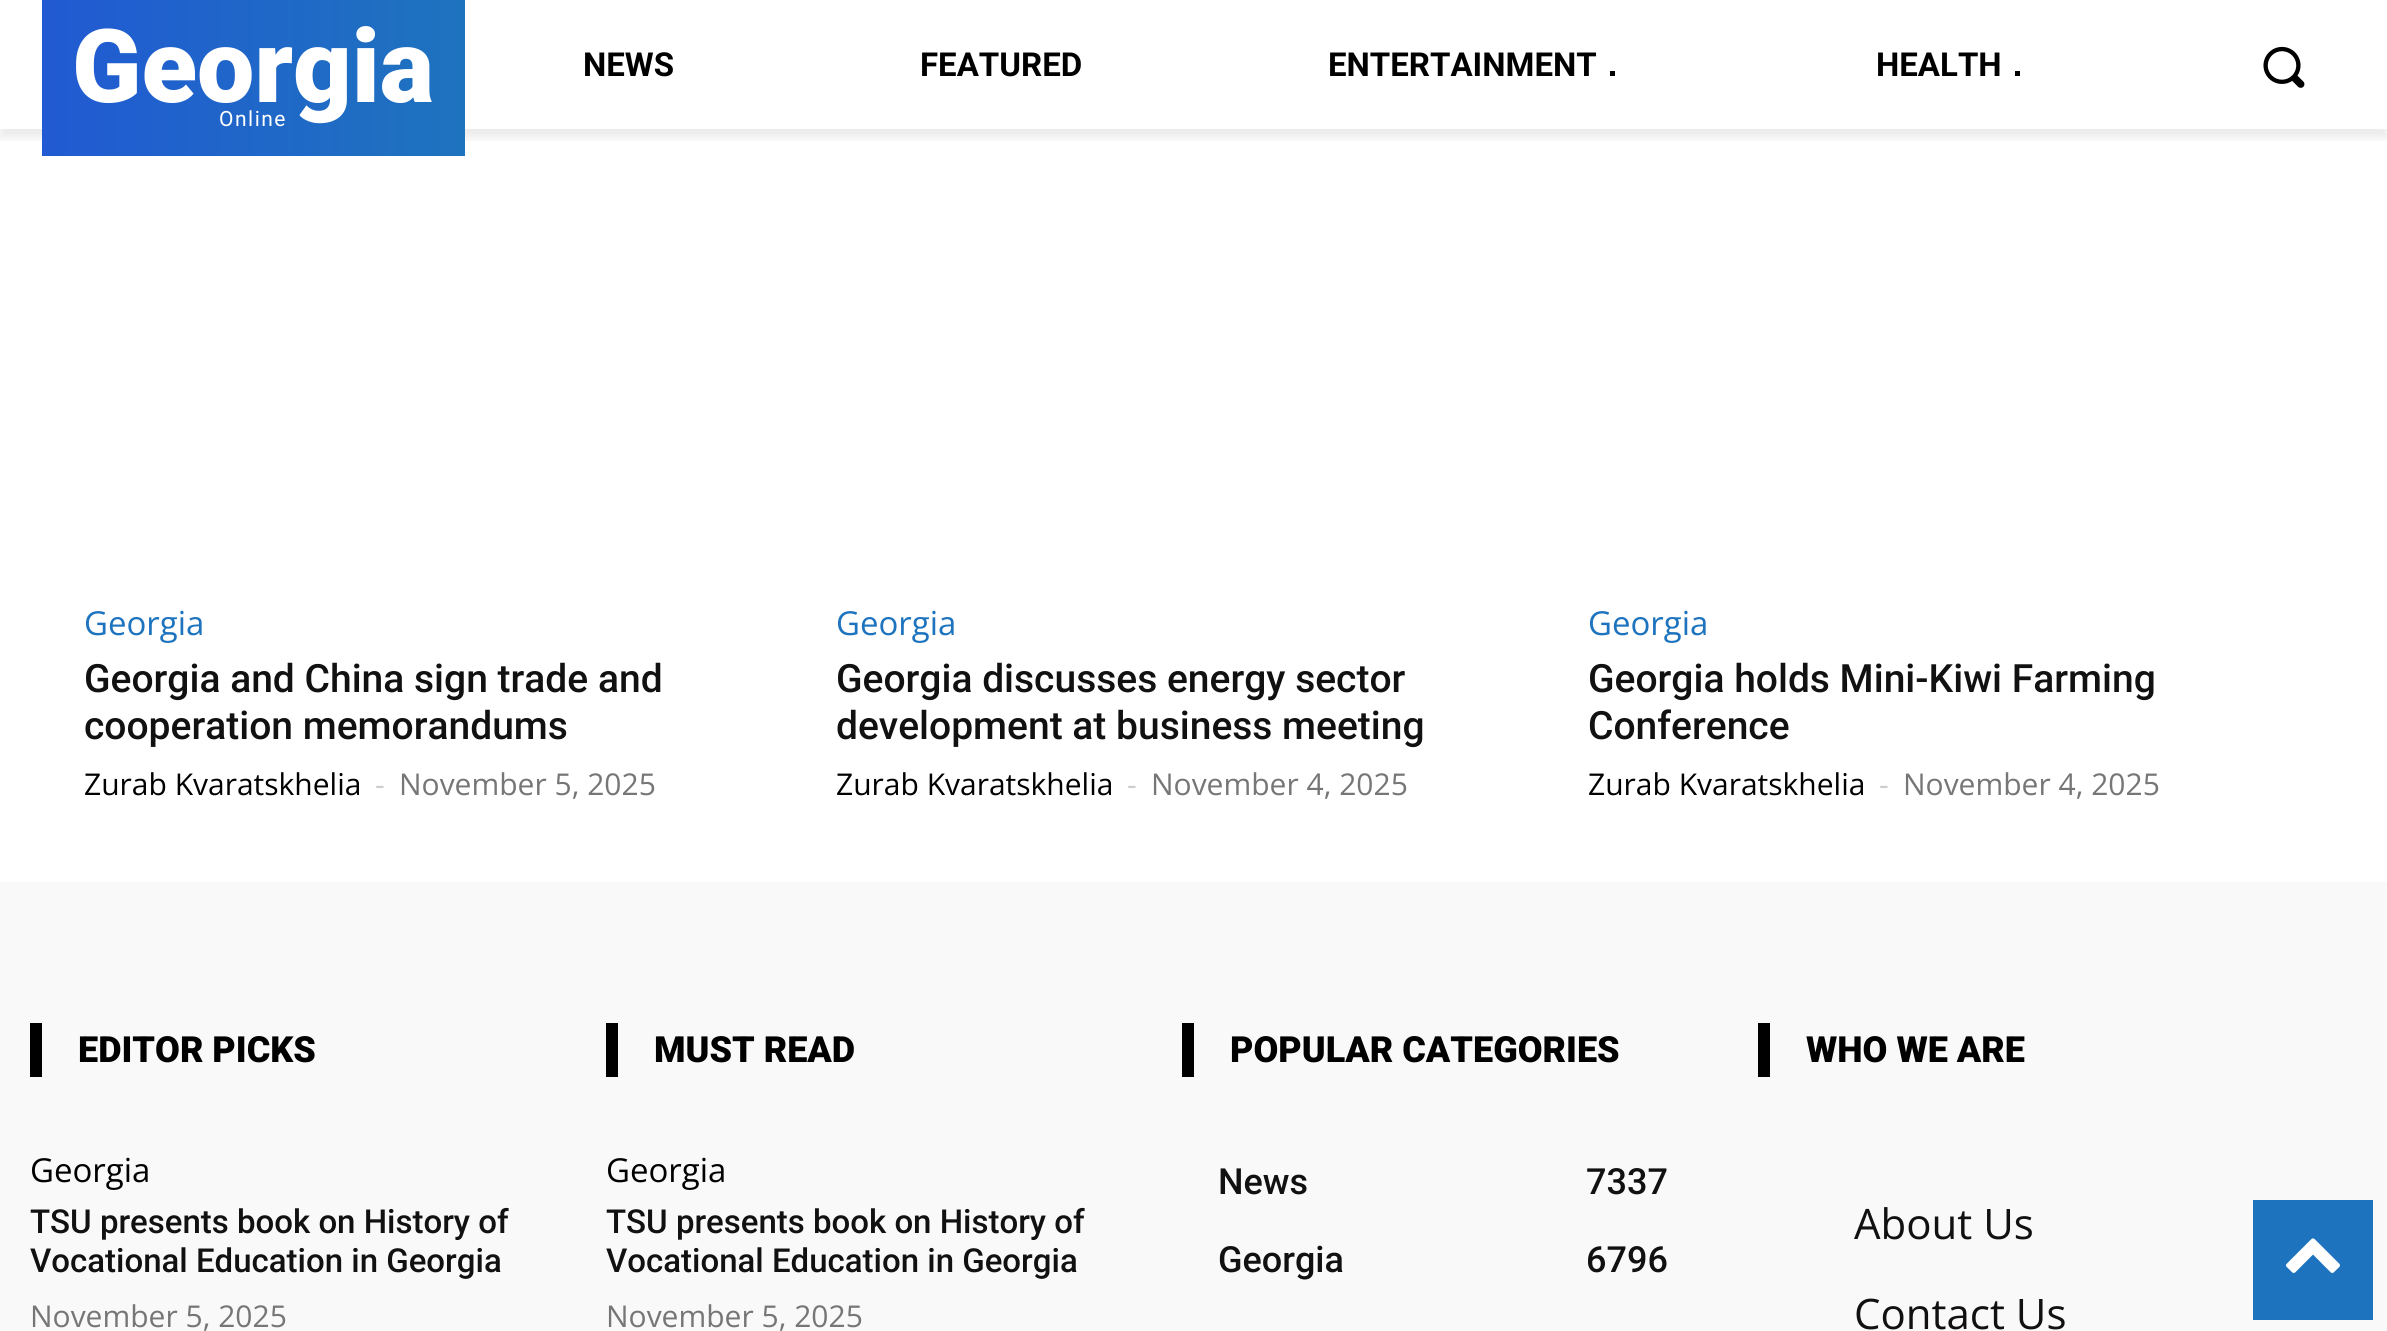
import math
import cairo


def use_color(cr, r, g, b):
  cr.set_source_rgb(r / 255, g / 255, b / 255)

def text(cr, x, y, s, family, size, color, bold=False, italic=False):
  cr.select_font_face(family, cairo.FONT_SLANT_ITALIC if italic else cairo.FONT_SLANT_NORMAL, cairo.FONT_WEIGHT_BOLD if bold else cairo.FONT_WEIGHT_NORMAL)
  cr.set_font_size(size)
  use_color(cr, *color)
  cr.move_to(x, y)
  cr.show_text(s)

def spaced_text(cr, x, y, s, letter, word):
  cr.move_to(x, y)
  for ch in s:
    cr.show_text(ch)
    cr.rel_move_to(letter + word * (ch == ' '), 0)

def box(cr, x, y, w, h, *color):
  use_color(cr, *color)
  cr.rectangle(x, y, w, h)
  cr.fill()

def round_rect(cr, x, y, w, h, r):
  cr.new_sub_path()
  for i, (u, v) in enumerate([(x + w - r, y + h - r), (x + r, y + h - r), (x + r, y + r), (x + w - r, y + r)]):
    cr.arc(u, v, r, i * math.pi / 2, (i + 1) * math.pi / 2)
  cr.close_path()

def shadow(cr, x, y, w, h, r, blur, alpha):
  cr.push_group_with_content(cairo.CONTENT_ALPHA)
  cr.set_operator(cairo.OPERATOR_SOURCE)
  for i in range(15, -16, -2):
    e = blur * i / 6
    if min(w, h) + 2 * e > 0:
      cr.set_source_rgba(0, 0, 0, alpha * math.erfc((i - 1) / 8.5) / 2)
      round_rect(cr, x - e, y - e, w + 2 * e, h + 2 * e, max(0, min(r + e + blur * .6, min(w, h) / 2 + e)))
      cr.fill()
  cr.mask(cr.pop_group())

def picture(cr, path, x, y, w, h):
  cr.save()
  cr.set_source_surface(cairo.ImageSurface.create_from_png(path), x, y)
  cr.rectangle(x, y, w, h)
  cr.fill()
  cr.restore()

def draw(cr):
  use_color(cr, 255, 255, 255)
  cr.paint()
  cr.save()
  cr.rectangle(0, 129, 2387, 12)
  cr.clip()
  use_color(cr, 0, 0, 0)
  shadow(cr, 0, 9, 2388, 129, 0, 4.5, 0.08)
  cr.restore()
  gradient = cairo.LinearGradient(465, 78, 42, 78)
  gradient.add_color_stop_rgba(0, 0.118, 0.451, 0.745, 1)
  gradient.add_color_stop_rgba(1, 0.129, 0.353, 0.827, 1)
  cr.set_source(gradient)
  cr.rectangle(42, 0, 423, 156)
  cr.fill()
  box(cr, 1610, 71, 5, 5, 0, 0, 0)
  box(cr, 2015, 71, 5, 5, 0, 0, 0)
  picture(cr, "img_01.png", 2263, 46, 42, 42)
  box(cr, 0, 882, 2387, 449, 249, 249, 249)
  box(cr, 30, 1023, 12, 54, 0, 0, 0)
  box(cr, 606, 1023, 12, 54, 0, 0, 0)
  box(cr, 1182, 1023, 12, 54, 0, 0, 0)
  box(cr, 1758, 1023, 12, 54, 0, 0, 0)
  box(cr, 2253, 1200, 120, 120, 30, 115, 190)
  picture(cr, "img_02.png", 2286, 1238, 54, 35)
  text(cr, 72, 102, "Georgia", "Roboto Black", 102, (255, 255, 255))
  cr.select_font_face("Roboto")
  cr.set_font_size(21)
  spaced_text(cr, 219, 126, "Online", 1.5, 0)
  text(cr, 583, 76, "NEWS", "Roboto", 33, (0, 0, 0), bold=True)
  text(cr, 920, 76, "FEATURED", "Roboto", 33, (0, 0, 0), bold=True)
  text(cr, 1328, 76, "ENTERTAINMENT", "Roboto", 33, (0, 0, 0), bold=True)
  text(cr, 1876, 76, "HEALTH", "Roboto", 33, (0, 0, 0), bold=True)
  text(cr, 84, 635, "Georgia", "Open Sans", 33, (30, 115, 190))
  text(cr, 84, 692, "Georgia and China sign trade and", "Roboto Medium", 39, (17, 17, 17))
  text(cr, 84, 739, "cooperation memorandums", "Roboto Medium", 39, (17, 17, 17))
  text(cr, 84, 795, "Zurab Kvaratskhelia", "Open Sans", 30, (0, 0, 0))
  text(cr, 375, 795, "-", "Open Sans", 30, (204, 204, 204))
  text(cr, 399, 795, "November 5, 2025", "Open Sans", 30, (118, 118, 118))
  text(cr, 836, 635, "Georgia", "Open Sans", 33, (30, 115, 190))
  text(cr, 836, 692, "Georgia discusses energy sector", "Roboto Medium", 39, (17, 17, 17))
  text(cr, 836, 739, "development at business meeting", "Roboto Medium", 39, (17, 17, 17))
  text(cr, 836, 795, "Zurab Kvaratskhelia", "Open Sans", 30, (0, 0, 0))
  text(cr, 1127, 795, "-", "Open Sans", 30, (204, 204, 204))
  text(cr, 1151, 795, "November 4, 2025", "Open Sans", 30, (118, 118, 118))
  text(cr, 1588, 635, "Georgia", "Open Sans", 33, (30, 115, 190))
  text(cr, 1588, 692, "Georgia holds Mini-Kiwi Farming", "Roboto Medium", 39, (17, 17, 17))
  text(cr, 1588, 739, "Conference", "Roboto Medium", 39, (17, 17, 17))
  text(cr, 1588, 795, "Zurab Kvaratskhelia", "Open Sans", 30, (0, 0, 0))
  text(cr, 1879, 795, "-", "Open Sans", 30, (204, 204, 204))
  text(cr, 1903, 795, "November 4, 2025", "Open Sans", 30, (118, 118, 118))
  text(cr, 78, 1062, "EDITOR PICKS", "Roboto Black", 36, (0, 0, 0))
  text(cr, 30, 1182, "Georgia", "Open Sans", 33, (0, 0, 0))
  text(cr, 30, 1233, "TSU presents book on History of", "Roboto Medium", 33, (17, 17, 17))
  text(cr, 30, 1272, "Vocational Education in Georgia", "Roboto Medium", 33, (17, 17, 17))
  text(cr, 30, 1327, "November 5, 2025", "Open Sans", 30, (118, 118, 118))
  text(cr, 654, 1062, "MUST READ", "Roboto Black", 36, (0, 0, 0))
  text(cr, 606, 1182, "Georgia", "Open Sans", 33, (0, 0, 0))
  text(cr, 606, 1233, "TSU presents book on History of", "Roboto Medium", 33, (17, 17, 17))
  text(cr, 606, 1272, "Vocational Education in Georgia", "Roboto Medium", 33, (17, 17, 17))
  text(cr, 606, 1327, "November 5, 2025", "Open Sans", 30, (118, 118, 118))
  text(cr, 1230, 1062, "POPULAR CATEGORIES", "Roboto Black", 36, (0, 0, 0))
  text(cr, 1218, 1194, "News", "Roboto Medium", 36, (17, 17, 17))
  text(cr, 1586, 1194, "7337", "Roboto Medium", 36, (17, 17, 17))
  text(cr, 1218, 1272, "Georgia", "Roboto Medium", 36, (17, 17, 17))
  text(cr, 1586, 1272, "6796", "Roboto Medium", 36, (17, 17, 17))
  text(cr, 1806, 1062, "WHO WE ARE", "Roboto Black", 36, (0, 0, 0))
  text(cr, 1854, 1239, "About Us", "Open Sans", 42, (17, 17, 17))
  text(cr, 1854, 1329, "Contact Us", "Open Sans", 42, (17, 17, 17))


surface = cairo.ImageSurface(cairo.FORMAT_RGB24, 2387, 1331)
cr = cairo.Context(surface)
options = cairo.FontOptions()
options.set_hint_metrics(cairo.HINT_METRICS_OFF)
options.set_hint_style(cairo.HINT_STYLE_NONE)
cr.set_font_options(options)
cr.set_miter_limit(4)
draw(cr)
surface.write_to_png("out.png")
